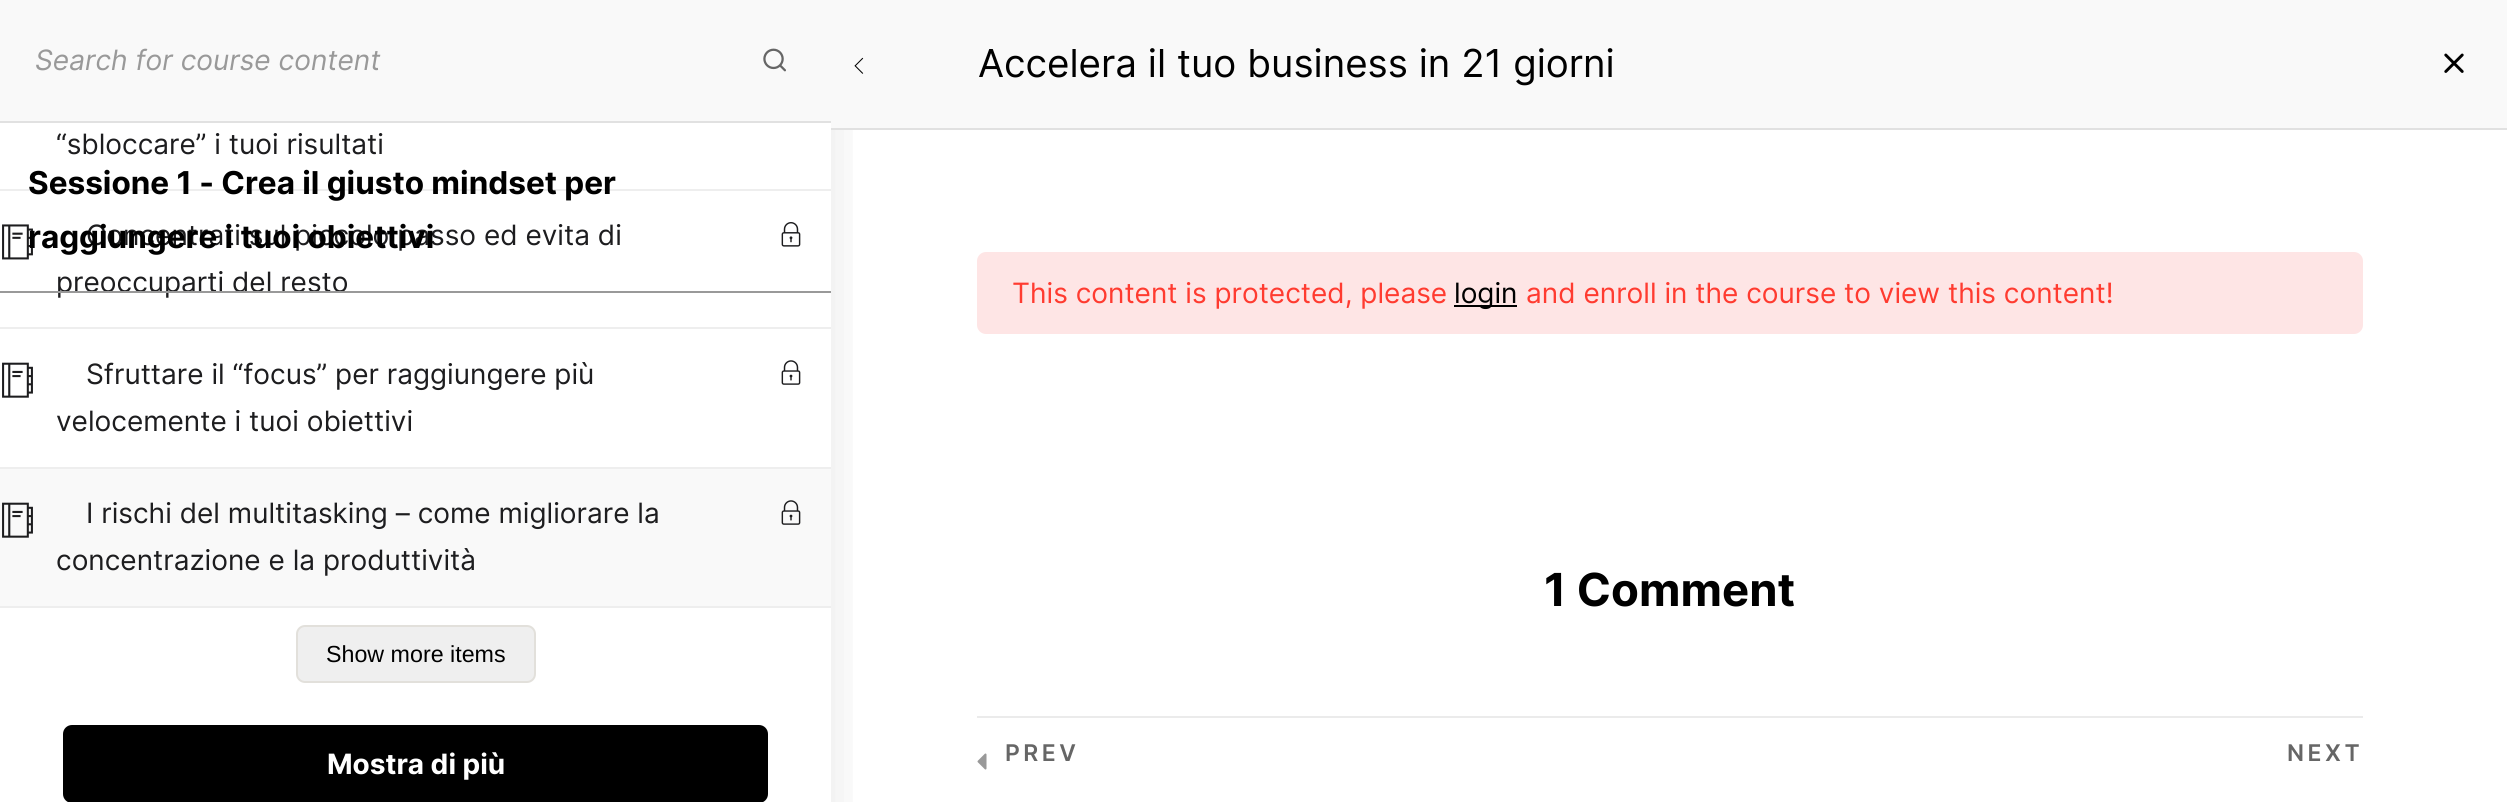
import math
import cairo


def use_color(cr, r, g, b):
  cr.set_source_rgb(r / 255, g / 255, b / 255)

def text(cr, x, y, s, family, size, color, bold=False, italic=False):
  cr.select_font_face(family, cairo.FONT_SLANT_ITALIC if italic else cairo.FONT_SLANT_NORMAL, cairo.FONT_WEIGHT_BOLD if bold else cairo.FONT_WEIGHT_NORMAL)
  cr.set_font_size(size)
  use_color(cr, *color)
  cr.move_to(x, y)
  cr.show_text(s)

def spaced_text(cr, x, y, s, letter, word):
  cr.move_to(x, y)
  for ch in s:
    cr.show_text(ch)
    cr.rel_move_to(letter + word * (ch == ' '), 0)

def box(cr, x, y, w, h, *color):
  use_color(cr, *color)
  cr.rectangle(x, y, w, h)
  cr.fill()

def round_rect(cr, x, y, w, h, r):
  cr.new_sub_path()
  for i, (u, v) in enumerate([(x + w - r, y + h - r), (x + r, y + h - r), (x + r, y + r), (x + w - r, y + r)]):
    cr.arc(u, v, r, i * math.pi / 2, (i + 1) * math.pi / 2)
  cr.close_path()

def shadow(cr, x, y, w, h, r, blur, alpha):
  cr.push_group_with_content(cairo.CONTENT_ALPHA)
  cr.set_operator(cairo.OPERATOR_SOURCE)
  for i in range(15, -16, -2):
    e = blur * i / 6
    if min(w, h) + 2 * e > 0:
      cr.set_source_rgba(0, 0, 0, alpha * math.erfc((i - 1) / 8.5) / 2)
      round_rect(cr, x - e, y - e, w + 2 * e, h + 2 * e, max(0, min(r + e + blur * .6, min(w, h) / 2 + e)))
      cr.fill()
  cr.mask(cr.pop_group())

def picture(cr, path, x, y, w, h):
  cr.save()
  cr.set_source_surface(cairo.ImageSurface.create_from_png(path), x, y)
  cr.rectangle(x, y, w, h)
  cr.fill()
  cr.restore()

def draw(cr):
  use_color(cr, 255, 255, 255)
  cr.paint()
  cr.save()
  cr.rectangle(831, 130, 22, 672)
  cr.clip()
  use_color(cr, 0, 0, 0)
  shadow(cr, 0, 26, 831, 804, 0, 26, 0.1)
  cr.restore()
  box(cr, 0, 0, 831, 121, 249, 249, 249)
  box(cr, 0, 121, 831, 2, 225, 225, 225)
  picture(cr, "img_01.png", 763, 48, 23, 24)
  box(cr, 0, 189, 831, 2, 238, 238, 238)
  box(cr, 0, 327, 831, 2, 238, 238, 238)
  picture(cr, "img_02.png", 2, 224, 31, 36)
  picture(cr, "img_03.png", 781, 222, 20, 25)
  box(cr, 0, 467, 831, 2, 238, 238, 238)
  picture(cr, "img_04.png", 2, 362, 31, 36)
  picture(cr, "img_05.png", 781, 360, 20, 25)
  box(cr, 0, 469, 831, 137, 249, 249, 249)
  box(cr, 0, 606, 831, 2, 238, 238, 238)
  picture(cr, "img_06.png", 2, 502, 31, 36)
  picture(cr, "img_07.png", 781, 500, 20, 25)
  use_color(cr, 239, 239, 239)
  round_rect(cr, 297, 626, 238, 56, 8)
  cr.fill_preserve()
  use_color(cr, 226, 224, 219)
  cr.stroke()
  use_color(cr, 0, 0, 0)
  round_rect(cr, 64, 726, 703, 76, 8)
  cr.fill_preserve()
  cr.stroke()
  box(cr, 831, 0, 1676, 128, 249, 249, 249)
  box(cr, 831, 128, 1676, 2, 225, 225, 225)
  picture(cr, "img_08.png", 854, 57, 10, 17)
  picture(cr, "img_09.png", 2444, 53, 20, 20)
  use_color(cr, 254, 229, 229)
  round_rect(cr, 977, 252, 1386, 82, 9)
  cr.fill()
  box(cr, 1454, 305, 63, 2, 0, 0, 0)
  box(cr, 977, 716, 1386, 2, 235, 235, 235)
  picture(cr, "img_10.png", 977, 753, 10, 17)
  text(cr, 35, 70, "Search for course content", "Inter", 28, (153, 153, 153), italic=True)
  text(cr, 56, 154, "“sbloccare” i tuoi risultati", "Inter", 28, (29, 29, 31))
  text(cr, 86, 245, "Concentrati sul piccolo passo ed evita di", "Inter", 28, (29, 29, 31))
  text(cr, 56, 292, "preoccuparti del resto", "Inter", 28, (29, 29, 31))
  text(cr, 86, 384, "Sfruttare il “focus” per raggiungere più", "Inter", 28, (29, 29, 31))
  text(cr, 56, 431, "velocemente i tuoi obiettivi", "Inter", 28, (29, 29, 31))
  text(cr, 86, 523, "I rischi del multitasking – come migliorare la", "Inter", 28, (29, 29, 31))
  text(cr, 56, 570, "concentrazione e la produttività", "Inter", 28, (29, 29, 31))
  text(cr, 326, 662, "Show more items", "Liberation Sans", 23.25, (0, 0, 0))
  box(cr, 0, 291, 831, 2, 153, 153, 153)
  text(cr, 28, 194, "Sessione 1 - Crea il giusto mindset per", "Inter", 31.5, (0, 0, 0), bold=True)
  text(cr, 28, 248, "raggiungere i tuoi obiettivi", "Inter", 31.5, (0, 0, 0), bold=True)
  text(cr, 327, 774, "Mostra di più", "Inter", 28, (255, 255, 255), bold=True)
  text(cr, 978, 77, "Accelera il tuo business in 21 giorni", "Inter", 38.5, (0, 0, 0))
  text(cr, 1012, 303, "This content is protected, please", "Inter", 28, (255, 59, 48))
  text(cr, 1454, 303, "login", "Inter", 28, (0, 0, 0))
  text(cr, 1526, 303, "and enroll in the course to view this content!", "Inter", 28, (255, 59, 48))
  text(cr, 1544, 606, "1 Comment", "Inter", 45.5, (0, 0, 0), bold=True)
  cr.select_font_face("Inter SemiBold")
  cr.set_font_size(23)
  use_color(cr, 102, 102, 102)
  spaced_text(cr, 1005, 761, "PREV", 3.5, 0)
  spaced_text(cr, 2287, 761, "NEXT", 3.5, 0)


surface = cairo.ImageSurface(cairo.FORMAT_RGB24, 2507, 802)
cr = cairo.Context(surface)
options = cairo.FontOptions()
options.set_hint_metrics(cairo.HINT_METRICS_OFF)
options.set_hint_style(cairo.HINT_STYLE_NONE)
cr.set_font_options(options)
cr.set_miter_limit(4)
draw(cr)
surface.write_to_png("out.png")
